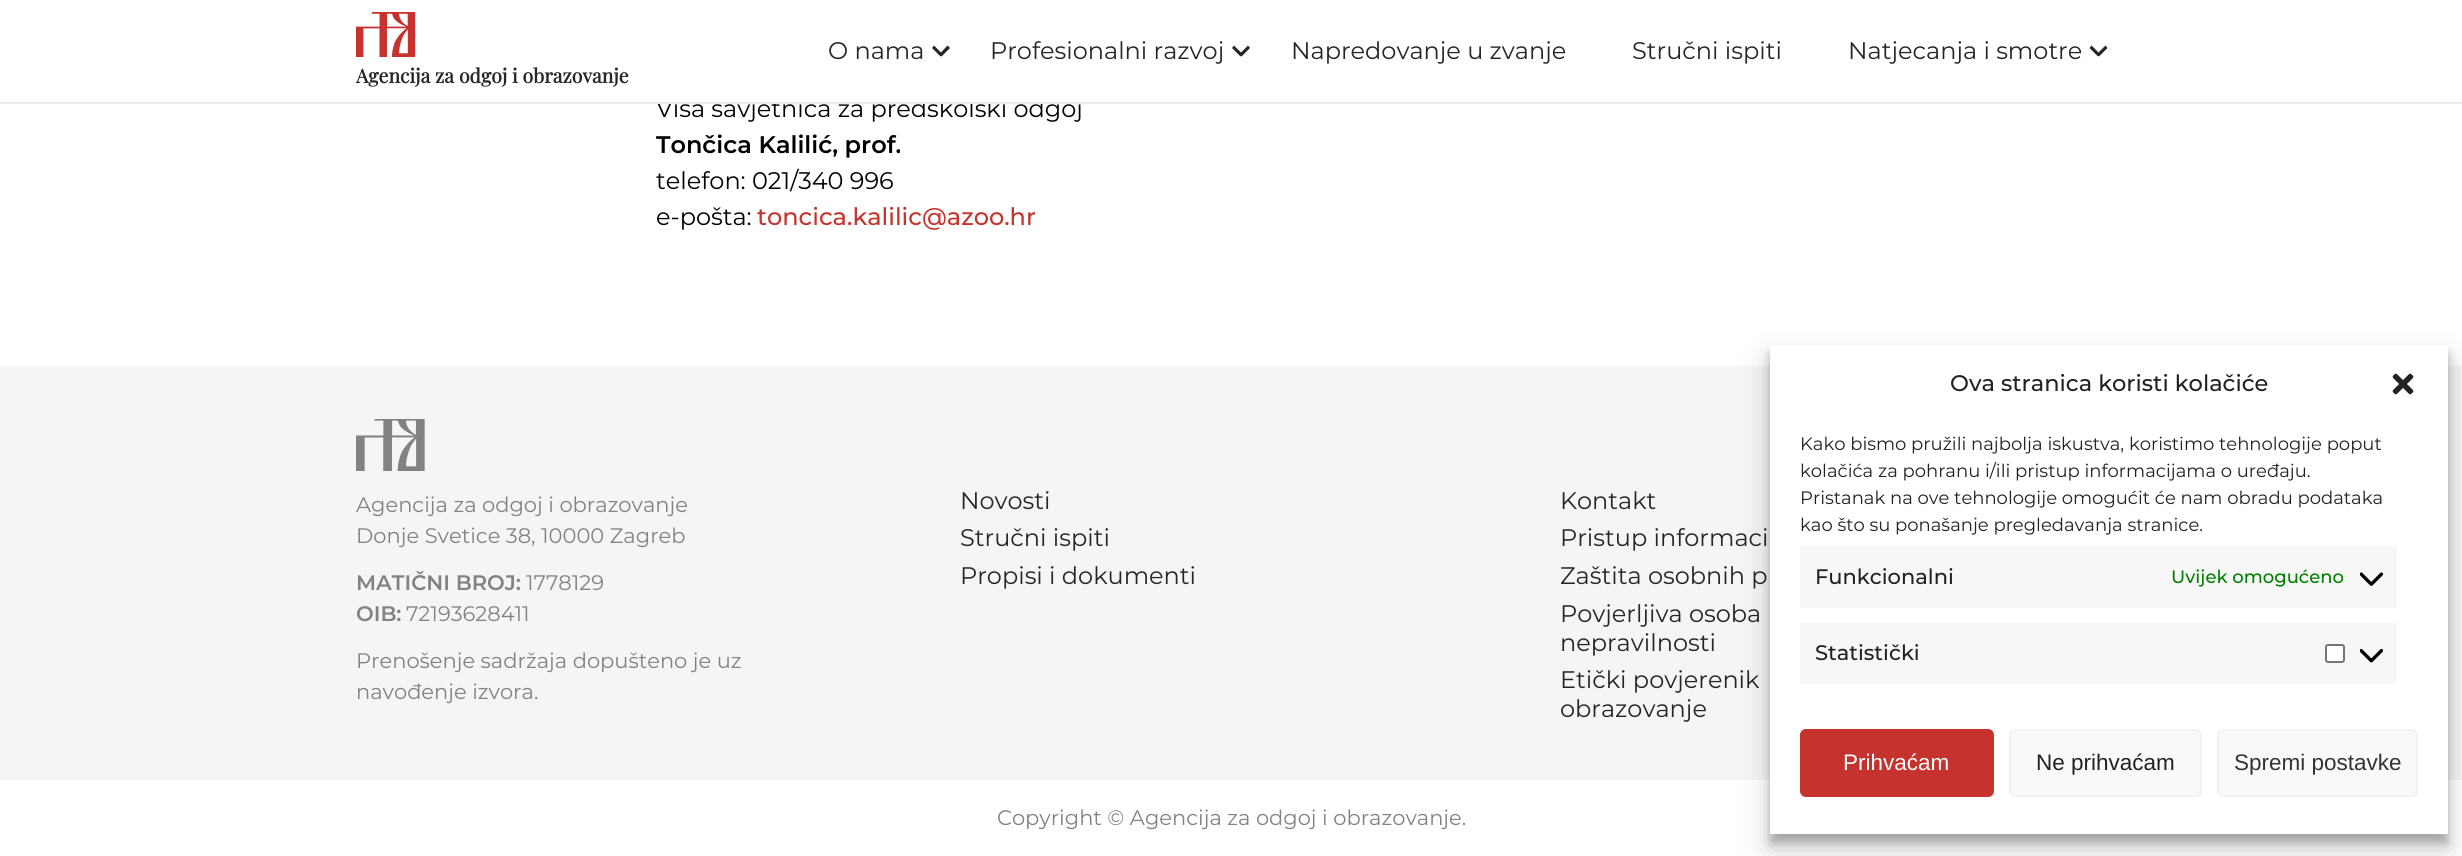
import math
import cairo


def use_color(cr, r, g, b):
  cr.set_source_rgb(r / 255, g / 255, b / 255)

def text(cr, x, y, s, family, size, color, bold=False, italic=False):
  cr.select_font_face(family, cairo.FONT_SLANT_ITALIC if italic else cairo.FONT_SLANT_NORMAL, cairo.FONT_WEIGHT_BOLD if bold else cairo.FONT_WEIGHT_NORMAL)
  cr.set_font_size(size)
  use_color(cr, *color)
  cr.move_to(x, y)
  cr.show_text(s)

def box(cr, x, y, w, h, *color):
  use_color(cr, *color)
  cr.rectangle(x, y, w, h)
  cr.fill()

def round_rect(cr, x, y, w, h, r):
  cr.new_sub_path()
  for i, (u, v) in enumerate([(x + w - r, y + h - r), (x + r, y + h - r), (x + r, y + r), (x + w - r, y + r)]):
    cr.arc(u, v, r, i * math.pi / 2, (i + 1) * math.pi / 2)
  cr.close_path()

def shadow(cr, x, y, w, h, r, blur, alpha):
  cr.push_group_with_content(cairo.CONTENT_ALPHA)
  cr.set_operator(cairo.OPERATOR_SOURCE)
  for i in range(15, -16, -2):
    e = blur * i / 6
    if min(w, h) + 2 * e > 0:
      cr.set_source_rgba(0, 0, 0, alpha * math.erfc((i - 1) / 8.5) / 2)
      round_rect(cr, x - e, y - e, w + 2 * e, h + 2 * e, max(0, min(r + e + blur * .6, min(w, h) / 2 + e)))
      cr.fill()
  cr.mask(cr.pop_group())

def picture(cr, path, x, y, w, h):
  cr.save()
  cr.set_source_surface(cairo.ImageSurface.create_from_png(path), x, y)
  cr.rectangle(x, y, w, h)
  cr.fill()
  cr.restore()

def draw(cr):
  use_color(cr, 255, 255, 255)
  cr.paint()
  use_color(cr, 41, 37, 38)
  cr.new_path()
  cr.move_to(941.5, 56.5)
  cr.line_to(939.5, 54)
  cr.line_to(947.5, 45.5)
  cr.line_to(950, 48)
  cr.close_path()
  cr.fill()
  cr.new_path()
  cr.move_to(942.5, 54)
  cr.line_to(940.5, 56.5)
  cr.line_to(932, 48)
  cr.line_to(934, 45.5)
  cr.close_path()
  cr.fill()
  cr.new_path()
  cr.move_to(1241.5, 56.5)
  cr.line_to(1239.5, 54)
  cr.line_to(1248, 45.5)
  cr.line_to(1250, 48)
  cr.close_path()
  cr.fill()
  cr.new_path()
  cr.move_to(1242.5, 54)
  cr.line_to(1240.5, 56.5)
  cr.line_to(1232, 48)
  cr.line_to(1234, 45.5)
  cr.close_path()
  cr.fill()
  cr.new_path()
  cr.move_to(2099, 56.5)
  cr.line_to(2097, 54)
  cr.line_to(2105.5, 45.5)
  cr.line_to(2107.5, 48)
  cr.close_path()
  cr.fill()
  cr.new_path()
  cr.move_to(2100, 54)
  cr.line_to(2098, 56.5)
  cr.line_to(2089.5, 48)
  cr.line_to(2091.5, 45.5)
  cr.close_path()
  cr.fill()
  picture(cr, "img_01.png", 356, 12, 60, 45)
  box(cr, 0, 366, 2462, 414, 245, 245, 247)
  picture(cr, "img_02.png", 356, 419, 69, 52)
  use_color(cr, 0, 0, 0)
  shadow(cr, 1770, 354, 678, 489, 0, 4.5, 0.23)
  shadow(cr, 1770, 360, 678, 489, 0, 15, 0.19)
  box(cr, 1770, 345, 678, 489, 255, 255, 255)
  picture(cr, "img_03.png", 2392, 373, 22, 22)
  box(cr, 1800, 546, 597, 62, 247, 247, 247)
  picture(cr, "img_04.png", 2360, 572, 24, 14)
  box(cr, 1800, 623, 597, 61, 247, 247, 247)
  use_color(cr, 255, 255, 255)
  round_rect(cr, 2326, 645, 18, 17, 2)
  cr.fill_preserve()
  use_color(cr, 118, 118, 118)
  cr.stroke()
  picture(cr, "img_05.png", 2360, 649, 24, 14)
  use_color(cr, 198, 50, 45)
  round_rect(cr, 1801, 730, 192, 66, 5)
  cr.fill_preserve()
  cr.stroke()
  use_color(cr, 249, 249, 249)
  round_rect(cr, 2010, 730, 191, 66, 5)
  cr.fill_preserve()
  use_color(cr, 242, 242, 242)
  cr.stroke()
  use_color(cr, 249, 249, 249)
  round_rect(cr, 2218, 730, 199, 66, 5)
  cr.fill_preserve()
  use_color(cr, 242, 242, 242)
  cr.stroke()
  text(cr, 828, 59, "O nama", "Montserrat", 24, (41, 37, 38))
  text(cr, 990, 59, "Profesionalni razvoj", "Montserrat", 24, (41, 37, 38))
  text(cr, 1291, 59, "Napredovanje u zvanje", "Montserrat", 24, (41, 37, 38))
  text(cr, 1632, 59, "Stručni ispiti", "Montserrat", 24, (41, 37, 38))
  text(cr, 1848, 59, "Natjecanja i smotre", "Montserrat", 24, (41, 37, 38))
  text(cr, 356, 83, "Agencija za odgoj i obrazovanje", "Playfair Display", 19.5, (41, 37, 38), bold=True)
  text(cr, 656, 117, "Viša savjetnica za predškolski odgoj", "Montserrat", 24, (1, 1, 1))
  box(cr, 0, 102, 2462, 2, 235, 235, 235)
  box(cr, 655, 99, 426, 3, 255, 255, 255)
  text(cr, 656, 153, "Tončica Kalilić, prof.", "Montserrat SemiBold", 24, (1, 1, 1))
  text(cr, 656, 189, "telefon: 021/340 996", "Montserrat", 24, (1, 1, 1))
  text(cr, 656, 225, "e-pošta:", "Montserrat", 24, (1, 1, 1))
  text(cr, 757, 225, "toncica.kalilic@azoo.hr", "Montserrat Medium", 24, (198, 51, 46))
  text(cr, 356, 512, "Agencija za odgoj i obrazovanje", "Montserrat", 21, (129, 130, 132))
  text(cr, 356, 543, "Donje Svetice 38, 10000 Zagreb", "Montserrat", 21, (129, 130, 132))
  text(cr, 356, 590, "MATIČNI BROJ:", "Montserrat SemiBold", 21, (129, 130, 132))
  text(cr, 526, 590, "1778129", "Montserrat", 21, (129, 130, 132))
  text(cr, 356, 621, "OIB:", "Montserrat SemiBold", 21, (129, 130, 132))
  text(cr, 406, 621, "72193628411", "Montserrat", 21, (129, 130, 132))
  text(cr, 356, 668, "Prenošenje sadržaja dopušteno je uz", "Montserrat", 21, (129, 130, 132))
  text(cr, 356, 699, "navođenje izvora.", "Montserrat", 21, (129, 130, 132))
  text(cr, 960, 509, "Novosti", "Montserrat", 24, (41, 37, 38))
  text(cr, 960, 546, "Stručni ispiti", "Montserrat", 24, (41, 37, 38))
  text(cr, 960, 584, "Propisi i dokumenti", "Montserrat", 24, (41, 37, 38))
  text(cr, 1560, 509, "Kontakt", "Montserrat", 24, (41, 37, 38))
  text(cr, 1560, 546, "Pristup informaci", "Montserrat", 24, (41, 37, 38))
  text(cr, 1560, 584, "Zaštita osobnih p", "Montserrat", 24, (41, 37, 38))
  text(cr, 1560, 622, "Povjerljiva osoba", "Montserrat", 24, (41, 37, 38))
  text(cr, 1560, 651, "nepravilnosti", "Montserrat", 24, (41, 37, 38))
  text(cr, 1560, 688, "Etički povjerenik", "Montserrat", 24, (41, 37, 38))
  text(cr, 1560, 717, "obrazovanje", "Montserrat", 24, (41, 37, 38))
  text(cr, 997, 825, "Copyright © Agencija za odgoj i obrazovanje.", "Montserrat", 21, (129, 130, 132))
  text(cr, 1950, 391, "Ova stranica koristi kolačiće", "Montserrat Medium", 22.5, (34, 34, 34))
  text(cr, 1800, 450, "Kako bismo pružili najbolja iskustva, koristimo tehnologije poput", "Montserrat", 18, (34, 34, 34))
  text(cr, 1800, 477, "kolačića za pohranu i/ili pristup informacijama o uređaju.", "Montserrat", 18, (34, 34, 34))
  text(cr, 1800, 504, "Pristanak na ove tehnologije omogućit će nam obradu podataka", "Montserrat", 18, (34, 34, 34))
  text(cr, 1800, 531, "kao što su ponašanje pregledavanja stranice.", "Montserrat", 18, (34, 34, 34))
  text(cr, 1815, 584, "Funkcionalni", "Montserrat Medium", 21, (34, 34, 34))
  text(cr, 2171, 583, "Uvijek omogućeno", "Montserrat Medium", 18, (0, 128, 0))
  text(cr, 1815, 660, "Statistički", "Montserrat Medium", 21, (34, 34, 34))
  text(cr, 1843, 770, "Prihvaćam", "Liberation Sans", 22.5, (255, 255, 255))
  text(cr, 2036, 770, "Ne prihvaćam", "Liberation Sans", 22.5, (34, 34, 34))
  text(cr, 2234, 770, "Spremi postavke", "Liberation Sans", 22.5, (51, 51, 51))


surface = cairo.ImageSurface(cairo.FORMAT_RGB24, 2462, 856)
cr = cairo.Context(surface)
options = cairo.FontOptions()
options.set_hint_metrics(cairo.HINT_METRICS_OFF)
options.set_hint_style(cairo.HINT_STYLE_NONE)
cr.set_font_options(options)
cr.set_miter_limit(4)
draw(cr)
surface.write_to_png("out.png")
